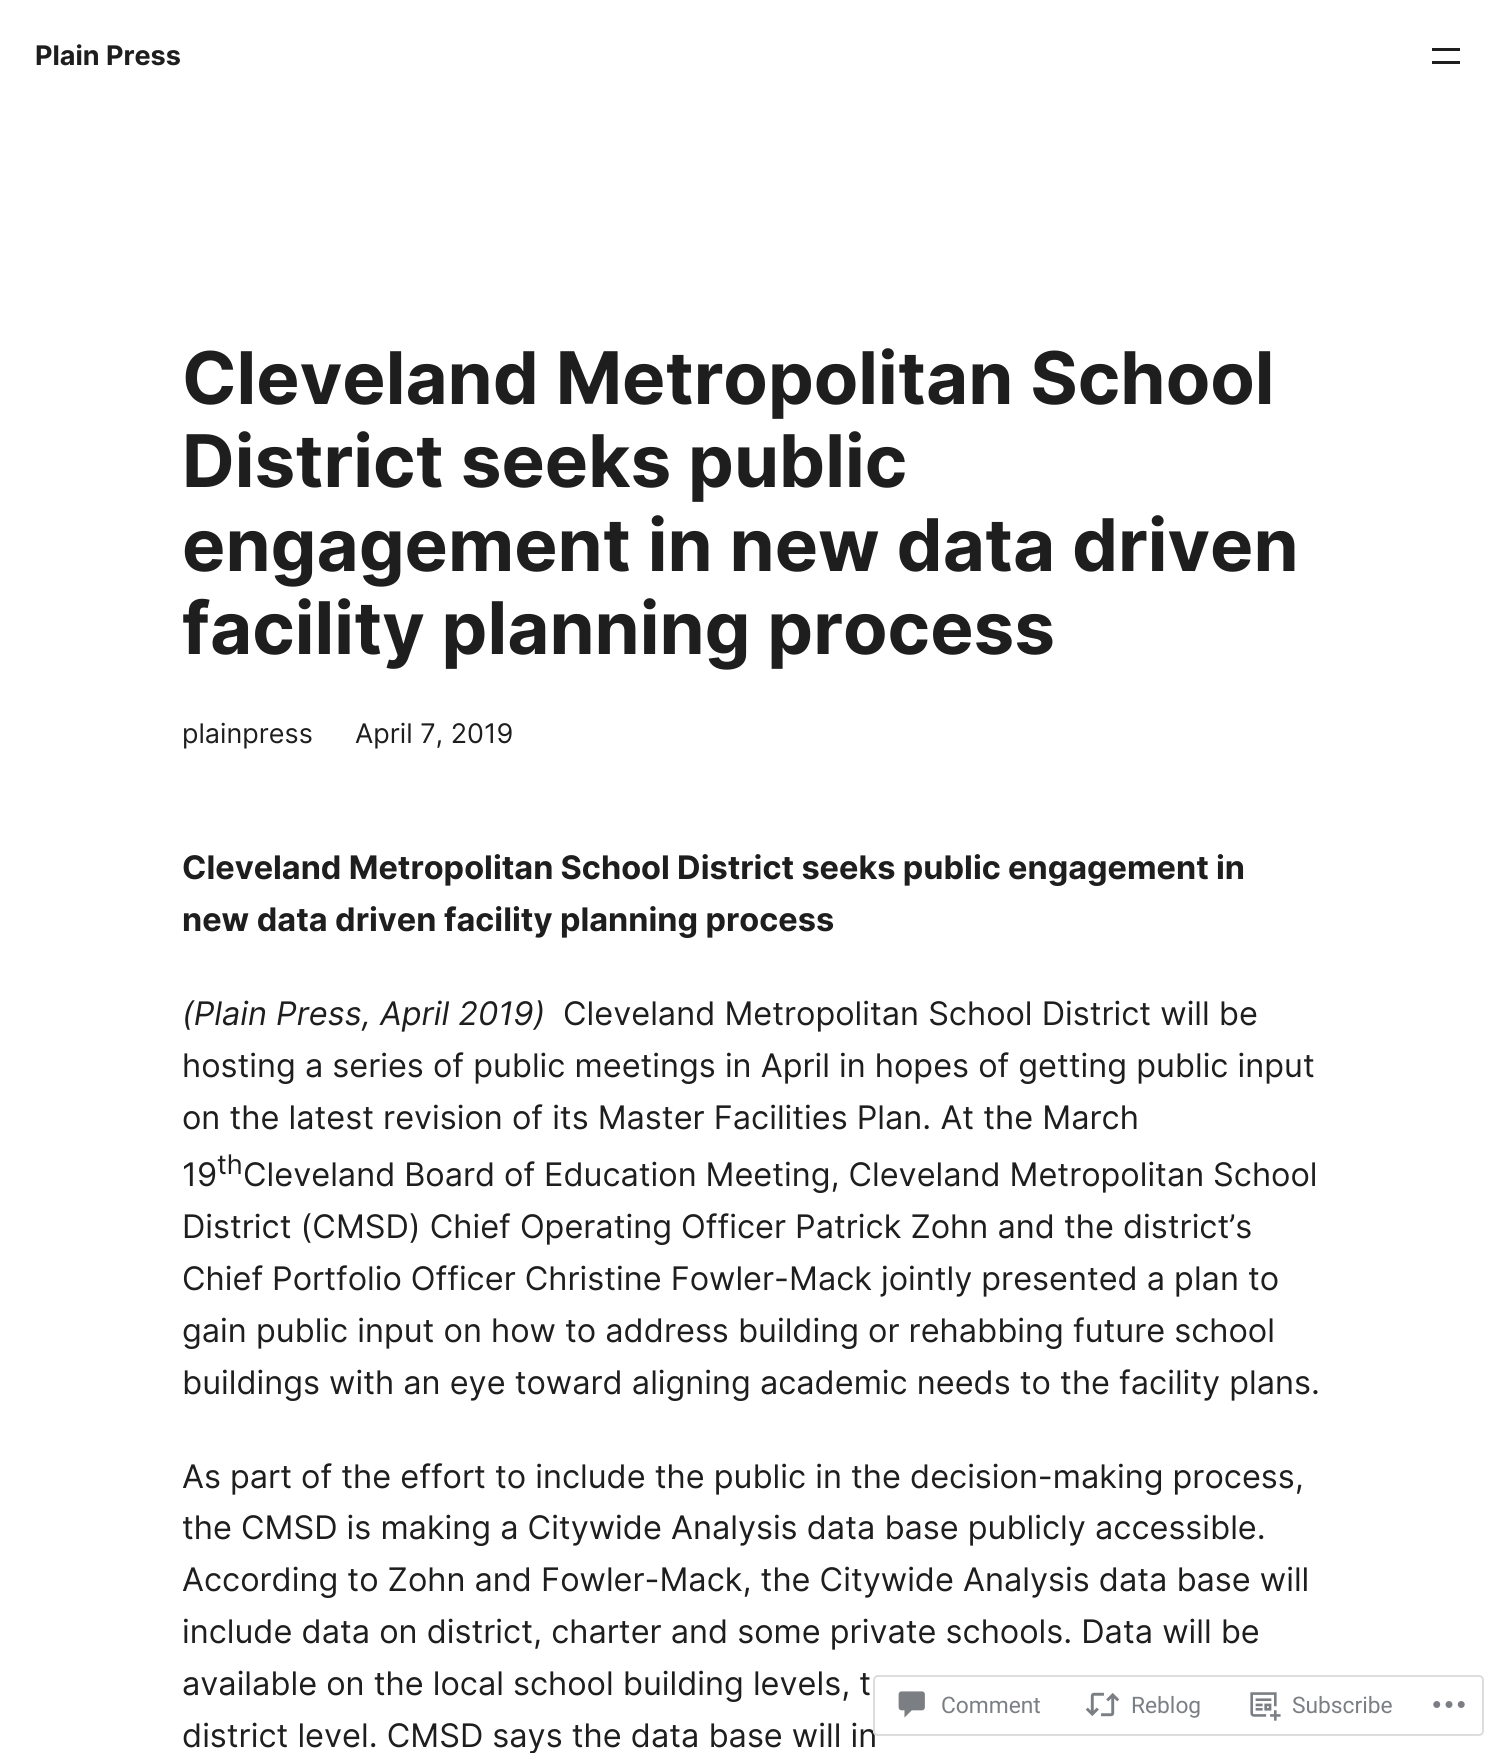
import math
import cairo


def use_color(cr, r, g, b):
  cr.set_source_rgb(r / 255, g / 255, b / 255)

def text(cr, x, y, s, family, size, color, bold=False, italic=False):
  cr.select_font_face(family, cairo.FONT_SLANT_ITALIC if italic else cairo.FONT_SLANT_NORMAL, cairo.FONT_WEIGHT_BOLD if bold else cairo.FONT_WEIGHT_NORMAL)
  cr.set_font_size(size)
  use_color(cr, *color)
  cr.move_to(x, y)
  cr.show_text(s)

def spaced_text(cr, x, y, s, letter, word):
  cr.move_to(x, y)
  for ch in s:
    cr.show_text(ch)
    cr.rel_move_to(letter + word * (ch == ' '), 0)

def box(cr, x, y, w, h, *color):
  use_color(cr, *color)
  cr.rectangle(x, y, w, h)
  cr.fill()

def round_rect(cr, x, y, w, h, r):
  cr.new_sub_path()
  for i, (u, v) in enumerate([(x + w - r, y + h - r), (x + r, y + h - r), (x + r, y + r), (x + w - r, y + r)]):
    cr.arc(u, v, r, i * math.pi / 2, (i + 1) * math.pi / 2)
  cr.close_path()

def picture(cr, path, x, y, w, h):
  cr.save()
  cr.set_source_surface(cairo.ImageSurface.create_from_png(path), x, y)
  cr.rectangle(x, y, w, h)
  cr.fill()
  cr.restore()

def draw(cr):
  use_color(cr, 255, 255, 255)
  cr.paint()
  box(cr, 1432, 48, 28, 3, 30, 30, 30)
  box(cr, 1432, 61, 28, 3, 30, 30, 30)
  text(cr, 35, 65, "Plain Press", "Inter", 27, (30, 30, 30), bold=True)
  text(cr, 182, 404, "Cleveland Metropolitan School", "Inter", 72.6, (30, 30, 30), bold=True)
  text(cr, 182, 487, "District seeks public", "Inter", 72.6, (30, 30, 30), bold=True)
  text(cr, 182, 571, "engagement in new data driven", "Inter", 72.6, (30, 30, 30), bold=True)
  text(cr, 182, 654, "facility planning process", "Inter", 72.6, (30, 30, 30), bold=True)
  text(cr, 182, 743, "plainpress", "Inter", 27, (30, 30, 30))
  text(cr, 355, 743, "April 7, 2019", "Inter", 27, (30, 30, 30))
  cr.select_font_face("Inter", cairo.FONT_SLANT_NORMAL, cairo.FONT_WEIGHT_BOLD)
  cr.set_font_size(32.45)
  spaced_text(cr, 182, 879, "Cleveland Metropolitan School District seeks public engagement in", 0, -0.25)
  text(cr, 182, 931, "new data driven facility planning process", "Inter", 32.45, (30, 30, 30), bold=True)
  text(cr, 182, 1025, "(Plain Press, April 2019)", "Inter", 32.45, (30, 30, 30), italic=True)
  text(cr, 563, 1025, "Cleveland Metropolitan School District will be", "Inter", 32.45, (30, 30, 30))
  text(cr, 182, 1077, "hosting a series of public meetings in April in hopes of getting public input", "Inter", 32.45, (30, 30, 30))
  text(cr, 182, 1129, "on the latest revision of its Master Facilities Plan. At the March", "Inter", 32.45, (30, 30, 30))
  text(cr, 182, 1186, "19", "Inter", 32.45, (30, 30, 30))
  text(cr, 217, 1174, "th", "Inter", 27, (30, 30, 30))
  cr.set_font_size(32.45)
  spaced_text(cr, 243, 1186, "Cleveland Board of Education Meeting, Cleveland Metropolitan School", 0, -0.25)
  text(cr, 182, 1238, "District (CMSD) Chief Operating Officer Patrick Zohn and the district’s", "Inter", 32.45, (30, 30, 30))
  spaced_text(cr, 182, 1290, "Chief Portfolio Officer Christine Fowler-Mack jointly presented a plan to", 0, -0.1)
  text(cr, 182, 1342, "gain public input on how to address building or rehabbing future school", "Inter", 32.45, (30, 30, 30))
  text(cr, 182, 1394, "buildings with an eye toward aligning academic needs to the facility plans.", "Inter", 32.45, (30, 30, 30))
  text(cr, 182, 1488, "As part of the effort to include the public in the decision-making process,", "Inter", 32.45, (30, 30, 30))
  text(cr, 182, 1539, "the CMSD is making a Citywide Analysis data base publicly accessible.", "Inter", 32.45, (30, 30, 30))
  text(cr, 182, 1591, "According to Zohn and Fowler-Mack, the Citywide Analysis data base will", "Inter", 32.45, (30, 30, 30))
  text(cr, 182, 1643, "include data on district, charter and some private schools. Data will be", "Inter", 32.45, (30, 30, 30))
  text(cr, 182, 1695, "available on the local school building levels, t", "Inter", 32.45, (30, 30, 30))
  text(cr, 182, 1747, "district level. CMSD says the data base will in", "Inter", 32.45, (30, 30, 30))
  cr.set_source_rgba(1, 1, 1, 0.98)
  round_rect(cr, 873, 1675, 611, 61, 5)
  cr.fill()
  round_rect(cr, 874, 1676, 609, 59, 4)
  cr.set_source_rgba(0.863, 0.863, 0.871, 0.98)
  cr.stroke()
  picture(cr, "img_01.png", 898, 1691, 27, 27)
  text(cr, 941, 1713, "Comment", "Roboto", 22.75, (123, 127, 132))
  picture(cr, "img_02.png", 1085, 1692, 35, 25)
  text(cr, 1131, 1713, "Reblog", "Roboto", 22.75, (123, 127, 132))
  picture(cr, "img_03.png", 1250, 1692, 31, 29)
  text(cr, 1292, 1713, "Subscribe", "Roboto", 22.75, (123, 127, 132))
  picture(cr, "img_04.png", 1433, 1701, 32, 7)


surface = cairo.ImageSurface(cairo.FORMAT_RGB24, 1500, 1753)
cr = cairo.Context(surface)
options = cairo.FontOptions()
options.set_hint_metrics(cairo.HINT_METRICS_OFF)
options.set_hint_style(cairo.HINT_STYLE_NONE)
cr.set_font_options(options)
cr.set_miter_limit(4)
draw(cr)
surface.write_to_png("out.png")
